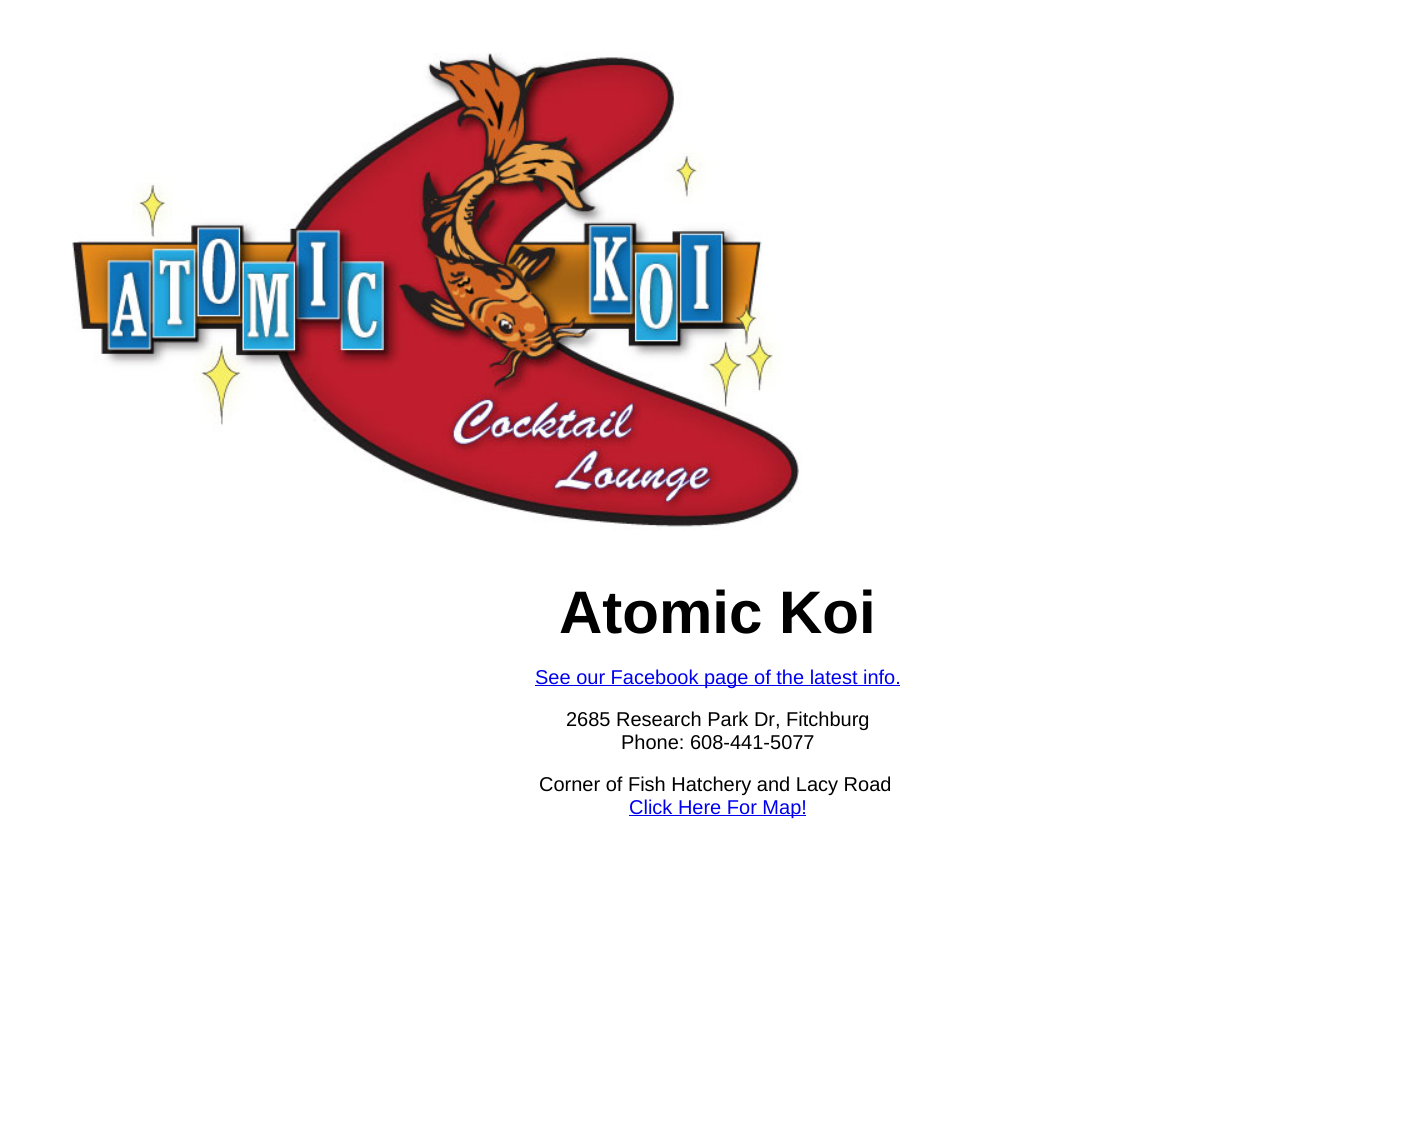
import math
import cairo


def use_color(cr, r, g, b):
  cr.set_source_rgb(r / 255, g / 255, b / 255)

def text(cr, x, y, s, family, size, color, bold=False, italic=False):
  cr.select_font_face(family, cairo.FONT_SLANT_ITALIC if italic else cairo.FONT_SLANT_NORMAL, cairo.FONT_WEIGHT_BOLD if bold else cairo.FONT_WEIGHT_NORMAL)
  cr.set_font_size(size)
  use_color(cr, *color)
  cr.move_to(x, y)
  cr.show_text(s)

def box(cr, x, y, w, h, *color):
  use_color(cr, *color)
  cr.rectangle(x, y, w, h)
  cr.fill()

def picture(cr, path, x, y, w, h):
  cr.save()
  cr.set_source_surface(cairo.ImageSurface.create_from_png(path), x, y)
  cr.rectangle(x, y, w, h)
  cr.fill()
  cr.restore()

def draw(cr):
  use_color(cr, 255, 255, 255)
  cr.paint()
  picture(cr, "img_01.png", 72, 52, 730, 478)
  box(cr, 535, 685, 365, 1, 0, 0, 238)
  box(cr, 629, 815, 177, 1, 0, 0, 238)
  text(cr, 559, 633, "Atomic Koi", "Liberation Sans", 60, (0, 0, 0), bold=True)
  text(cr, 535, 684, "See our Facebook page of the latest info.", "Liberation Sans", 20, (0, 0, 238))
  text(cr, 566, 726, "2685 Research Park Dr, Fitchburg", "Liberation Sans", 20, (0, 0, 0))
  text(cr, 621, 749, "Phone: 608-441-5077", "Liberation Sans", 20, (0, 0, 0))
  text(cr, 539, 791, "Corner of Fish Hatchery and Lacy Road", "Liberation Sans", 20, (0, 0, 0))
  text(cr, 629, 814, "Click Here For Map!", "Liberation Sans", 20, (0, 0, 238))


surface = cairo.ImageSurface(cairo.FORMAT_RGB24, 1410, 1126)
cr = cairo.Context(surface)
options = cairo.FontOptions()
options.set_hint_metrics(cairo.HINT_METRICS_OFF)
options.set_hint_style(cairo.HINT_STYLE_NONE)
cr.set_font_options(options)
cr.set_miter_limit(4)
draw(cr)
surface.write_to_png("out.png")
